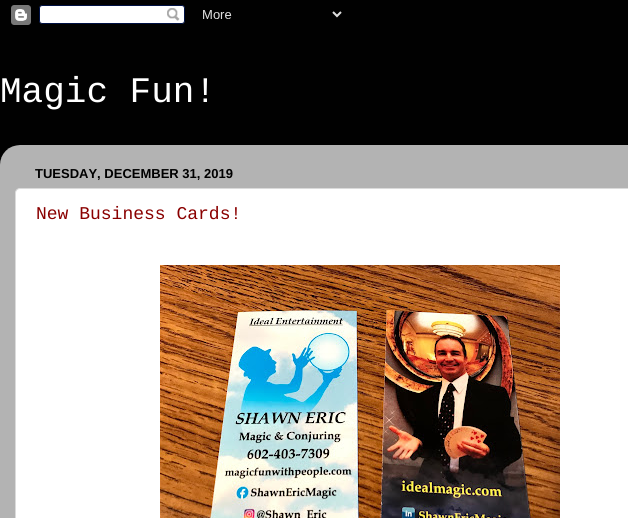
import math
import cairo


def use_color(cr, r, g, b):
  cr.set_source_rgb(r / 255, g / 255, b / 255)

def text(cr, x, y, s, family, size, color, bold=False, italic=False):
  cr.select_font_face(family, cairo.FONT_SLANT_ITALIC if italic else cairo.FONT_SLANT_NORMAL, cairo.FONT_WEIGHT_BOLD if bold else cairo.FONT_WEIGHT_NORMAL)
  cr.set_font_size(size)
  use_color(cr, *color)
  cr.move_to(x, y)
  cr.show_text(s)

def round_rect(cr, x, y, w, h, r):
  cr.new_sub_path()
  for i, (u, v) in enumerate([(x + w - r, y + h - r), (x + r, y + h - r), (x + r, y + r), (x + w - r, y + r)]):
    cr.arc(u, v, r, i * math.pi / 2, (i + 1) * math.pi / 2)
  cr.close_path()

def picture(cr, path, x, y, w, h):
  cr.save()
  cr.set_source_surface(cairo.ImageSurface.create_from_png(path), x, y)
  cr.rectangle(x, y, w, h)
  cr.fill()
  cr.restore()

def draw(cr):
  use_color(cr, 1, 1, 1)
  cr.paint()
  picture(cr, "img_01.png", 11, 5, 331, 20)
  picture(cr, "img_02.png", 0, 145, 628, 373)
  use_color(cr, 255, 255, 255)
  round_rect(cr, 15.5, 188.5, 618, 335, 4.5)
  cr.fill_preserve()
  use_color(cr, 219, 219, 219)
  cr.set_line_width(1)
  cr.stroke()
  picture(cr, "img_03.png", 160, 265, 400, 253)
  text(cr, 0, 102, "Magic Fun!", "Liberation Mono", 36, (255, 255, 255))
  text(cr, 35, 178, "TUESDAY, DECEMBER 31, 2019", "Liberation Sans", 13, (0, 0, 0), bold=True)
  text(cr, 36, 219, "New Business Cards!", "Liberation Mono", 18, (138, 0, 0))


surface = cairo.ImageSurface(cairo.FORMAT_RGB24, 628, 518)
cr = cairo.Context(surface)
options = cairo.FontOptions()
options.set_hint_metrics(cairo.HINT_METRICS_OFF)
options.set_hint_style(cairo.HINT_STYLE_NONE)
cr.set_font_options(options)
cr.set_miter_limit(4)
draw(cr)
surface.write_to_png("out.png")
